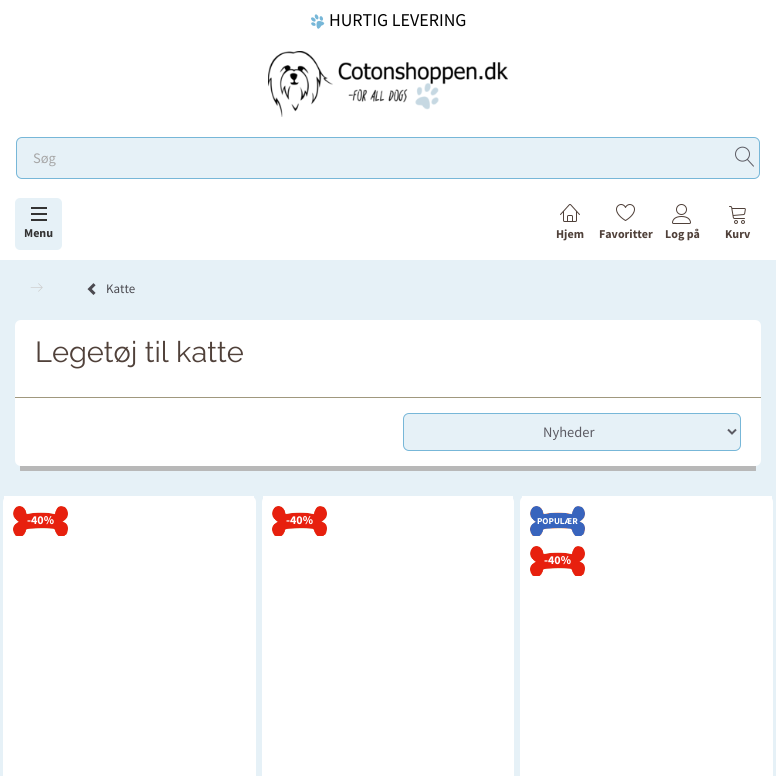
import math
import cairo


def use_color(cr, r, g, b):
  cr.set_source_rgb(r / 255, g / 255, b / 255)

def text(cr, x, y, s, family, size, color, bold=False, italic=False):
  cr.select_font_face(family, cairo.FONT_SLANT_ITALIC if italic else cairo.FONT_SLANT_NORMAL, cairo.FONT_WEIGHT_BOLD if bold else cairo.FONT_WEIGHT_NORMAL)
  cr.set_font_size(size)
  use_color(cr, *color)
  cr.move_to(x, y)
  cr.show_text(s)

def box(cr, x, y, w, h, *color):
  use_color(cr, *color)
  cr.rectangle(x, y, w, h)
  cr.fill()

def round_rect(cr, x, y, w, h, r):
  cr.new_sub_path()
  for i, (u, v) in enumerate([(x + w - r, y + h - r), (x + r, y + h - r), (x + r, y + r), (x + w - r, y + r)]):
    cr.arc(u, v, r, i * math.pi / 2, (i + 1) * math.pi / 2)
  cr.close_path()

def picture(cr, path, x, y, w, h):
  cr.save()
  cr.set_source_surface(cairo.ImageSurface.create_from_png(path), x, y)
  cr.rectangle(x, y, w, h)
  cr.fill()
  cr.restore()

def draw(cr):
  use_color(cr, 230, 241, 247)
  cr.paint()
  box(cr, 0, 0, 776, 260, 255, 255, 255)
  picture(cr, "img_01.png", 311, 14, 14, 15)
  picture(cr, "img_02.png", 268, 51, 240, 66)
  use_color(cr, 230, 241, 247)
  round_rect(cr, 16.5, 137.5, 743, 41, 5.5)
  cr.fill_preserve()
  use_color(cr, 119, 183, 216)
  cr.set_line_width(1)
  cr.stroke()
  picture(cr, "img_03.png", 735, 146, 19, 21)
  use_color(cr, 230, 241, 247)
  round_rect(cr, 15, 198, 47, 52, 5)
  cr.fill()
  box(cr, 31, 207, 16, 2, 51, 51, 51)
  box(cr, 31, 213, 16, 2, 51, 51, 51)
  box(cr, 31, 219, 16, 2, 51, 51, 51)
  picture(cr, "img_04.png", 560, 204, 20, 18)
  picture(cr, "img_05.png", 616, 204, 19, 17)
  picture(cr, "img_06.png", 672, 204, 19, 20)
  picture(cr, "img_07.png", 729, 206, 17, 18)
  picture(cr, "img_08.png", 30, 283, 13, 9)
  picture(cr, "img_09.png", 87, 283, 9, 12)
  use_color(cr, 255, 255, 255)
  cr.new_path()
  cr.move_to(21, 320)
  cr.line_to(755, 320)
  cr.curve_to(758.5, 320, 761, 322.5, 761, 326)
  cr.line_to(761, 397)
  cr.line_to(15, 397)
  cr.line_to(15, 326)
  cr.curve_to(15, 322.5, 17.5, 320, 21, 320)
  cr.close_path()
  cr.fill()
  use_color(cr, 184, 184, 184)
  cr.new_path()
  cr.move_to(20, 466)
  cr.line_to(20, 470)
  cr.curve_to(20, 471, 20, 471, 21, 471)
  cr.line_to(755, 471)
  cr.curve_to(756, 471, 756, 471, 756, 470)
  cr.line_to(756, 466)
  cr.close_path()
  cr.fill()
  use_color(cr, 255, 255, 255)
  cr.new_path()
  cr.move_to(15, 397)
  cr.line_to(761, 397)
  cr.line_to(761, 460)
  cr.curve_to(761, 463.5, 758.5, 466, 755, 466)
  cr.line_to(21, 466)
  cr.curve_to(17.5, 466, 15, 463.5, 15, 460)
  cr.close_path()
  cr.fill()
  box(cr, 15, 397, 746, 1, 160, 152, 126)
  use_color(cr, 230, 241, 247)
  round_rect(cr, 403.5, 413.5, 337, 37, 5.5)
  cr.fill_preserve()
  use_color(cr, 119, 183, 216)
  cr.stroke()
  cr.new_path()
  cr.move_to(728, 429.5)
  cr.line_to(732, 433.5)
  cr.line_to(736, 429.5)
  use_color(cr, 92, 91, 99)
  cr.set_line_width(2)
  cr.stroke()
  use_color(cr, 255, 255, 255)
  round_rect(cr, 3, 496, 253, 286, 6)
  cr.fill()
  box(cr, 4, 496, 250, 3, 255, 255, 255)
  picture(cr, "img_10.png", 13, 506, 55, 30)
  round_rect(cr, 262, 496, 252, 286, 6)
  cr.fill()
  box(cr, 263, 496, 250, 3, 255, 255, 255)
  picture(cr, "img_10.png", 272, 506, 55, 30)
  round_rect(cr, 520, 496, 253, 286, 6)
  cr.fill()
  box(cr, 522, 496, 250, 3, 255, 255, 255)
  picture(cr, "img_11.png", 530, 506, 55, 30)
  picture(cr, "img_12.png", 530, 546, 55, 30)
  text(cr, 329, 26, "HURTIG LEVERING", "Source Sans Pro", 18, (0, 0, 0))
  text(cr, 33, 163, "Søg", "Source Sans Pro", 14.5, (166, 166, 166))
  text(cr, 24, 237, "Menu", "Source Sans Pro", 12, (51, 51, 51), bold=True)
  text(cr, 556, 238, "Hjem", "Source Sans Pro", 12, (80, 65, 58), bold=True)
  text(cr, 599, 238, "Favoritter", "Source Sans Pro", 12, (80, 65, 58), bold=True)
  text(cr, 665, 238, "Log på", "Source Sans Pro", 12, (80, 65, 58), bold=True)
  text(cr, 725, 238, "Kurv", "Source Sans Pro", 12, (80, 65, 58), bold=True)
  text(cr, 106, 293, "Katte", "Source Sans Pro", 13, (75, 74, 80))
  text(cr, 35, 362, "Legetøj til katte", "Raleway", 29, (80, 65, 58))
  text(cr, 543, 437, "Nyheder", "Source Sans Pro", 14.5, (92, 91, 99))
  text(cr, 27, 524, "-40%", "Source Sans Pro", 12, (255, 255, 255), bold=True)
  text(cr, 286, 524, "-40%", "Source Sans Pro", 12, (255, 255, 255), bold=True)
  text(cr, 537, 524, "POPULÆR", "Source Sans Pro", 9, (255, 255, 255), bold=True)
  text(cr, 544, 564, "-40%", "Source Sans Pro", 12, (255, 255, 255), bold=True)


surface = cairo.ImageSurface(cairo.FORMAT_RGB24, 776, 776)
cr = cairo.Context(surface)
options = cairo.FontOptions()
options.set_hint_metrics(cairo.HINT_METRICS_OFF)
options.set_hint_style(cairo.HINT_STYLE_NONE)
cr.set_font_options(options)
cr.set_miter_limit(4)
draw(cr)
surface.write_to_png("out.png")
